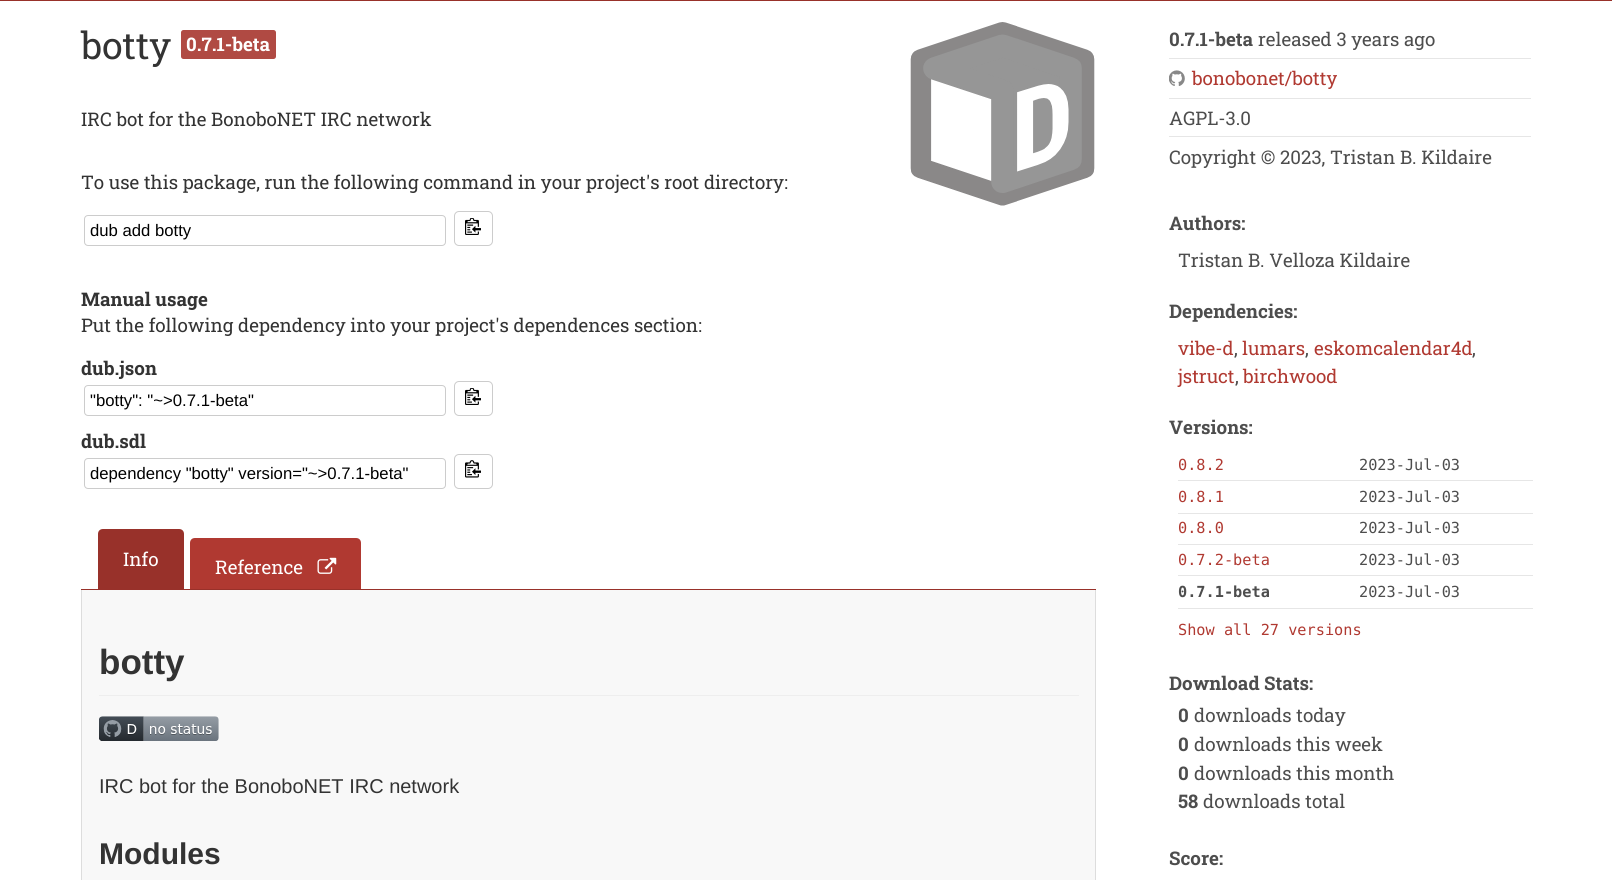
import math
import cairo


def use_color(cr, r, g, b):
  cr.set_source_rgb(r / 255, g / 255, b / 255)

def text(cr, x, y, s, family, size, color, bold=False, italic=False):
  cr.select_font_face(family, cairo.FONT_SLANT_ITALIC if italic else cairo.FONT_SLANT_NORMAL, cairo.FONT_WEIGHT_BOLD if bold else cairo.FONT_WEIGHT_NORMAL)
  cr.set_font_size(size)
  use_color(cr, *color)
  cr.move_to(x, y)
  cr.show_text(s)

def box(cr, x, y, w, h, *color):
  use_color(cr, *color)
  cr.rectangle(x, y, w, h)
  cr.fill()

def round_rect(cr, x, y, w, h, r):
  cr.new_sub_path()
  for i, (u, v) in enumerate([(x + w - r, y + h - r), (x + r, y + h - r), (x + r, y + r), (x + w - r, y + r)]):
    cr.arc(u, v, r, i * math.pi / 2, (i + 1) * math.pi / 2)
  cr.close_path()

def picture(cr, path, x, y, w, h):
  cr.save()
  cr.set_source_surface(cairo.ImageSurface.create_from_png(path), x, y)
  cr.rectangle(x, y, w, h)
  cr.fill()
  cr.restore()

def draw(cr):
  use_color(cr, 255, 255, 255)
  cr.paint()
  box(cr, 0, 0, 1612, 1, 152, 49, 42)
  use_color(cr, 176, 74, 67)
  round_rect(cr, 181, 30, 95, 29, 2.5)
  cr.fill()
  picture(cr, "img_01.png", 910, 22, 185, 184)
  round_rect(cr, 84.5, 215.5, 361, 30, 3.5)
  use_color(cr, 204, 204, 204)
  cr.set_line_width(1)
  cr.stroke()
  round_rect(cr, 454.5, 211.5, 38, 34, 4.5)
  cr.stroke()
  picture(cr, "img_02.png", 465, 218, 16, 17)
  round_rect(cr, 84.5, 385.5, 361, 30, 3.5)
  cr.stroke()
  round_rect(cr, 454.5, 381.5, 38, 34, 4.5)
  cr.stroke()
  picture(cr, "img_02.png", 465, 388, 16, 17)
  round_rect(cr, 84.5, 458.5, 361, 30, 3.5)
  cr.stroke()
  round_rect(cr, 454.5, 454.5, 38, 34, 4.5)
  cr.stroke()
  picture(cr, "img_03.png", 465, 460, 16, 18)
  box(cr, 81, 589, 1015, 1, 152, 49, 42)
  cr.new_path()
  cr.move_to(103, 529)
  cr.line_to(179, 529)
  cr.curve_to(182, 529, 184, 531, 184, 534)
  cr.line_to(184, 589)
  cr.line_to(98, 589)
  cr.line_to(98, 534)
  cr.curve_to(98, 531, 100, 529, 103, 529)
  cr.close_path()
  cr.fill()
  use_color(cr, 176, 57, 49)
  cr.new_path()
  cr.move_to(195, 538)
  cr.line_to(356, 538)
  cr.curve_to(359, 538, 361, 540, 361, 543)
  cr.line_to(361, 589)
  cr.line_to(190, 589)
  cr.line_to(190, 543)
  cr.curve_to(190, 540, 192, 538, 195, 538)
  cr.close_path()
  cr.fill()
  picture(cr, "img_04.png", 317, 557, 20, 17)
  box(cr, 82, 590, 1013, 290, 248, 248, 248)
  use_color(cr, 221, 221, 221)
  cr.set_fill_rule(cairo.FILL_RULE_EVEN_ODD)
  cr.new_path()
  cr.move_to(81, 590)
  cr.line_to(1096, 590)
  cr.line_to(1096, 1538)
  cr.curve_to(1096, 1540, 1094, 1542, 1091, 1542)
  cr.line_to(86, 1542)
  cr.curve_to(83, 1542, 81, 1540, 81, 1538)
  cr.close_path()
  cr.move_to(82, 590)
  cr.line_to(1095, 590)
  cr.line_to(1095, 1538)
  cr.curve_to(1095, 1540, 1093, 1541, 1091, 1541)
  cr.line_to(86, 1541)
  cr.curve_to(84, 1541, 82, 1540, 82, 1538)
  cr.close_path()
  cr.fill()
  box(cr, 99, 695, 980, 1, 238, 238, 238)
  picture(cr, "img_05.png", 99, 716, 120, 25)
  box(cr, 1169, 58, 362, 1, 230, 230, 230)
  box(cr, 1169, 98, 362, 1, 230, 230, 230)
  picture(cr, "img_06.png", 1169, 70, 16, 16)
  box(cr, 1169, 136, 362, 1, 230, 230, 230)
  box(cr, 1178, 480, 355, 1, 230, 230, 230)
  box(cr, 1178, 513, 355, 1, 230, 230, 230)
  box(cr, 1178, 544, 355, 1, 230, 230, 230)
  box(cr, 1178, 575, 355, 1, 230, 230, 230)
  box(cr, 1178, 608, 355, 1, 230, 230, 230)
  text(cr, 81, 59, "botty", "Roboto Slab", 37.5, (51, 51, 51))
  text(cr, 186, 51, "0.7.1-beta", "Roboto Slab", 18.75, (255, 255, 255), bold=True)
  text(cr, 81, 126, "IRC bot for the BonoboNET IRC network", "Roboto Slab", 18.75, (51, 51, 51))
  text(cr, 81, 189, "To use this package, run the following command in your project's root directory:", "Roboto Slab", 18.75, (51, 51, 51))
  text(cr, 90, 236, "dub add botty", "Liberation Sans", 16.7, (0, 0, 0))
  text(cr, 81, 306, "Manual usage", "Roboto Slab", 18.75, (51, 51, 51), bold=True)
  text(cr, 81, 332, "Put the following dependency into your project's dependences section:", "Roboto Slab", 18.75, (51, 51, 51))
  text(cr, 81, 375, "dub.json", "Roboto Slab", 18.75, (51, 51, 51), bold=True)
  text(cr, 90, 406, "\"botty\": \"~>0.7.1-beta\"", "Liberation Sans", 16.7, (0, 0, 0))
  text(cr, 81, 448, "dub.sdl", "Roboto Slab", 18.75, (51, 51, 51), bold=True)
  text(cr, 90, 479, "dependency \"botty\" version=\"~>0.7.1-beta\"", "Liberation Sans", 16.7, (0, 0, 0))
  text(cr, 123, 566, "Info", "Roboto Slab", 18.75, (255, 255, 255))
  text(cr, 215, 574, "Reference", "Roboto Slab", 18.75, (255, 255, 255))
  text(cr, 99, 674, "botty", "Liberation Sans", 35, (51, 51, 51), bold=True)
  text(cr, 99, 793, "IRC bot for the BonoboNET IRC network", "Liberation Sans", 20, (51, 51, 51))
  text(cr, 99, 864, "Modules", "Liberation Sans", 30, (51, 51, 51), bold=True)
  text(cr, 1169, 46, "0.7.1-beta", "Roboto Slab", 18.75, (77, 77, 77), bold=True)
  text(cr, 1258, 46, "released 3 years ago", "Roboto Slab", 18.75, (77, 77, 77))
  text(cr, 1192, 85, "bonobonet/botty", "Roboto Slab", 18.75, (176, 57, 49))
  text(cr, 1169, 125, "AGPL-3.0", "Roboto Slab", 18.75, (77, 77, 77))
  text(cr, 1169, 164, "Copyright © 2023, Tristan B. Kildaire", "Roboto Slab", 18.75, (77, 77, 77))
  text(cr, 1169, 230, "Authors:", "Roboto Slab", 18.75, (77, 77, 77), bold=True)
  text(cr, 1178, 267, "Tristan B. Velloza Kildaire", "Roboto Slab", 18.75, (77, 77, 77))
  text(cr, 1169, 318, "Dependencies:", "Roboto Slab", 18.75, (77, 77, 77), bold=True)
  text(cr, 1178, 355, "vibe-d", "Roboto Slab", 18.75, (176, 57, 49))
  text(cr, 1234, 355, ",", "Roboto Slab", 18.75, (77, 77, 77))
  text(cr, 1242, 355, "lumars", "Roboto Slab", 18.75, (176, 57, 49))
  text(cr, 1305, 355, ",", "Roboto Slab", 18.75, (77, 77, 77))
  text(cr, 1314, 355, "eskomcalendar4d", "Roboto Slab", 18.75, (176, 57, 49))
  text(cr, 1472, 355, ",", "Roboto Slab", 18.75, (77, 77, 77))
  text(cr, 1178, 383, "jstruct", "Roboto Slab", 18.75, (176, 57, 49))
  text(cr, 1235, 383, ",", "Roboto Slab", 18.75, (77, 77, 77))
  text(cr, 1243, 383, "birchwood", "Roboto Slab", 18.75, (176, 57, 49))
  text(cr, 1169, 434, "Versions:", "Roboto Slab", 18.75, (77, 77, 77), bold=True)
  text(cr, 1178, 470, "0.8.2", "DejaVu Sans Mono", 15.25, (176, 57, 49))
  text(cr, 1359, 470, "2023-Jul-03", "DejaVu Sans Mono", 15.25, (77, 77, 77))
  text(cr, 1178, 502, "0.8.1", "DejaVu Sans Mono", 15.25, (176, 57, 49))
  text(cr, 1359, 502, "2023-Jul-03", "DejaVu Sans Mono", 15.25, (77, 77, 77))
  text(cr, 1178, 533, "0.8.0", "DejaVu Sans Mono", 15.25, (176, 57, 49))
  text(cr, 1359, 533, "2023-Jul-03", "DejaVu Sans Mono", 15.25, (77, 77, 77))
  text(cr, 1178, 565, "0.7.2-beta", "DejaVu Sans Mono", 15.25, (176, 57, 49))
  text(cr, 1359, 565, "2023-Jul-03", "DejaVu Sans Mono", 15.25, (77, 77, 77))
  text(cr, 1178, 597, "0.7.1-beta", "DejaVu Sans Mono", 15.25, (77, 77, 77), bold=True)
  text(cr, 1359, 597, "2023-Jul-03", "DejaVu Sans Mono", 15.25, (77, 77, 77))
  text(cr, 1178, 635, "Show all 27 versions", "DejaVu Sans Mono", 15.25, (176, 57, 49))
  text(cr, 1169, 690, "Download Stats:", "Roboto Slab", 18.75, (77, 77, 77), bold=True)
  text(cr, 1178, 722, "0", "Roboto Slab", 18.75, (77, 77, 77), bold=True)
  text(cr, 1194, 722, "downloads today", "Roboto Slab", 18.75, (77, 77, 77))
  text(cr, 1178, 751, "0", "Roboto Slab", 18.75, (77, 77, 77), bold=True)
  text(cr, 1194, 751, "downloads this week", "Roboto Slab", 18.75, (77, 77, 77))
  text(cr, 1178, 780, "0", "Roboto Slab", 18.75, (77, 77, 77), bold=True)
  text(cr, 1194, 780, "downloads this month", "Roboto Slab", 18.75, (77, 77, 77))
  text(cr, 1178, 808, "58", "Roboto Slab", 18.75, (77, 77, 77), bold=True)
  text(cr, 1203, 808, "downloads total", "Roboto Slab", 18.75, (77, 77, 77))
  text(cr, 1169, 865, "Score:", "Roboto Slab", 18.75, (77, 77, 77), bold=True)


surface = cairo.ImageSurface(cairo.FORMAT_RGB24, 1612, 880)
cr = cairo.Context(surface)
options = cairo.FontOptions()
options.set_hint_metrics(cairo.HINT_METRICS_OFF)
options.set_hint_style(cairo.HINT_STYLE_NONE)
cr.set_font_options(options)
cr.set_miter_limit(4)
draw(cr)
surface.write_to_png("out.png")
